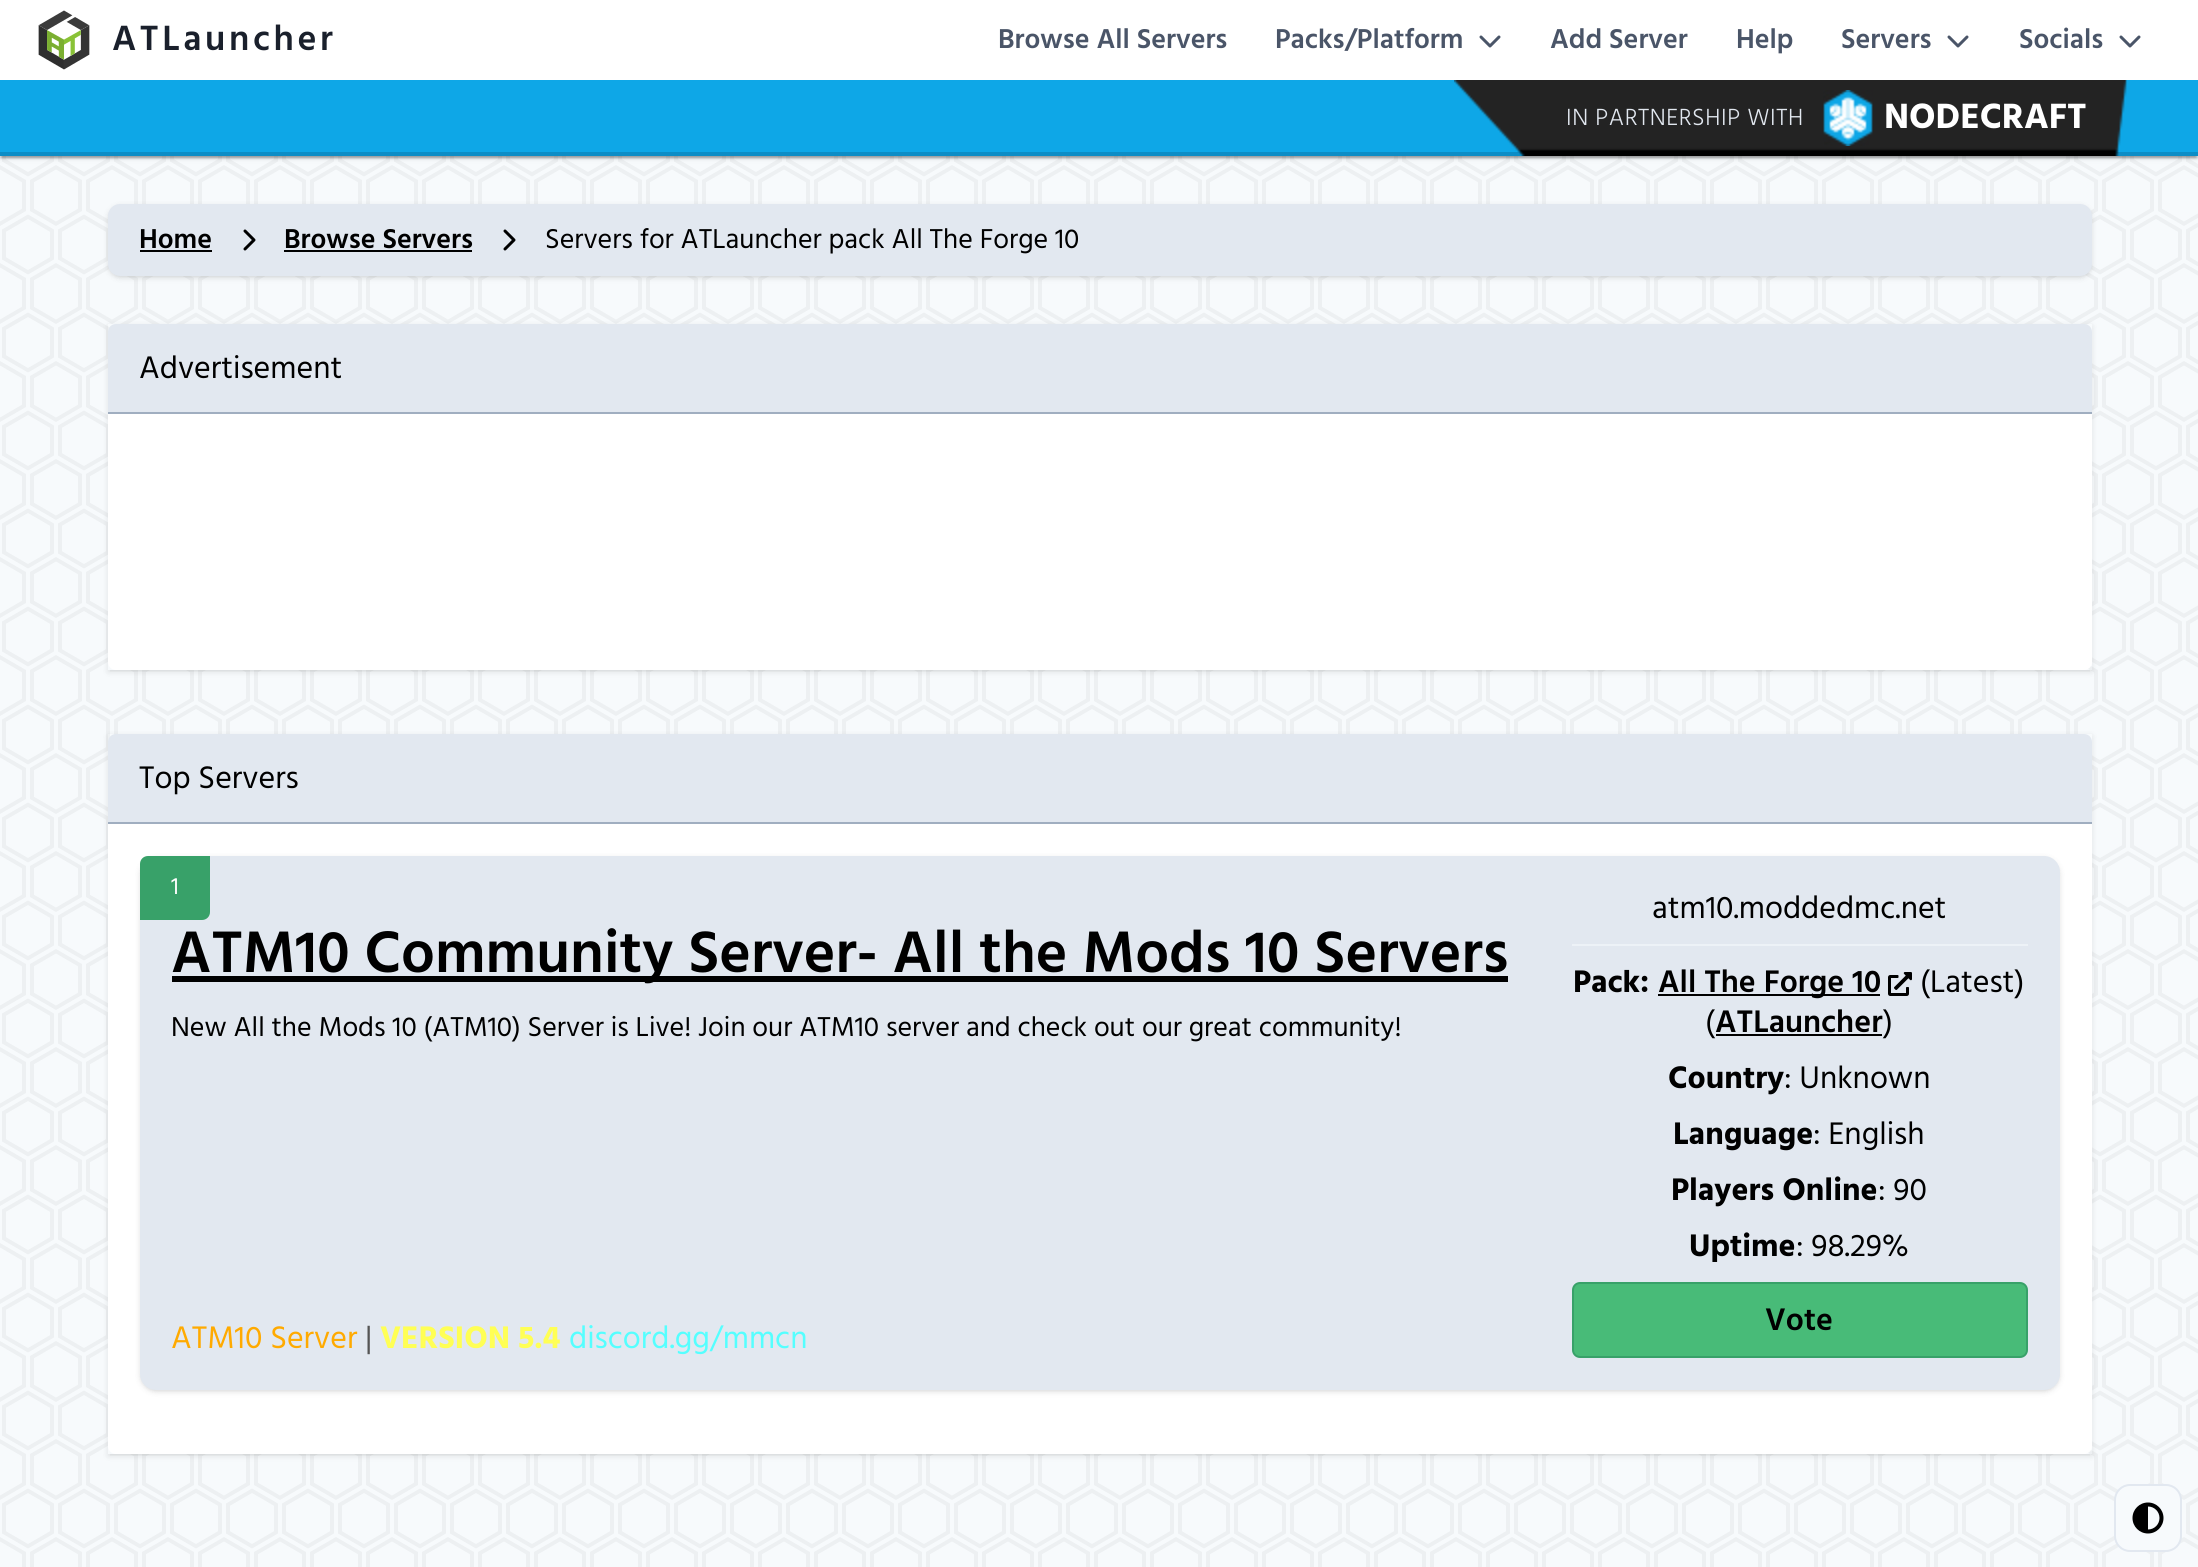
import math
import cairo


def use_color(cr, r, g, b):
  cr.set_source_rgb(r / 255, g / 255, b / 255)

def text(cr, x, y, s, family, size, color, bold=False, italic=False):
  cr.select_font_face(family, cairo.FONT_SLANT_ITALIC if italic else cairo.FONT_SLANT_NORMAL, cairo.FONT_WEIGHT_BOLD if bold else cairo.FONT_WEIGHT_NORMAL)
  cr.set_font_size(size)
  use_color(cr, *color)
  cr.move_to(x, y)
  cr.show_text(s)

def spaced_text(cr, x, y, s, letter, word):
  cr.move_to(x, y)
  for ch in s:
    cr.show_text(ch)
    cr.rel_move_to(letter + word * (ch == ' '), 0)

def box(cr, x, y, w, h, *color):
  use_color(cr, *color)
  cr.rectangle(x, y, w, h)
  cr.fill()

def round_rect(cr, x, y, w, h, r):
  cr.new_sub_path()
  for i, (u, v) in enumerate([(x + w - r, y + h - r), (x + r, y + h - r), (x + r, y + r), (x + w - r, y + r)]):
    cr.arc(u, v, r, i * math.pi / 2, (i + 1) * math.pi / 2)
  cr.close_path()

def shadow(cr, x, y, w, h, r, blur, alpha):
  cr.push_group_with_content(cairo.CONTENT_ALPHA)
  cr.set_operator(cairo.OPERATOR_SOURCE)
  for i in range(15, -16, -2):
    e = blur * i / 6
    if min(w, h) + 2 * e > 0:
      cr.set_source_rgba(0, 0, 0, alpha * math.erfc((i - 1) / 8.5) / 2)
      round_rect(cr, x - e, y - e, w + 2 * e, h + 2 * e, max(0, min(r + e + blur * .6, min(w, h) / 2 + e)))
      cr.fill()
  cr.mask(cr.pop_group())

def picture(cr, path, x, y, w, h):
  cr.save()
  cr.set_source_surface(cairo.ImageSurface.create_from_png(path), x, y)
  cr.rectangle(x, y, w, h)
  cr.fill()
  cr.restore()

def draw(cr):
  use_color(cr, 247, 250, 252)
  cr.paint()
  picture(cr, "img_01.png", 0, 156, 2198, 1411)
  use_color(cr, 0, 0, 0)
  shadow(cr, 0, 2, 2198, 156, 0, 3, 0.12)
  shadow(cr, 0, 2, 2198, 156, 0, 1, 0.14)
  shadow(cr, 2, 6, 2194, 152, 0, 1, 0.2)
  box(cr, 0, 0, 2198, 80, 255, 255, 255)
  picture(cr, "img_02.png", 38, 10, 52, 60)
  picture(cr, "img_03.png", 1479, 35, 22, 13)
  picture(cr, "img_03.png", 1947, 35, 22, 13)
  picture(cr, "img_03.png", 2119, 35, 22, 13)
  box(cr, 0, 80, 2198, 72, 14, 167, 231)
  box(cr, 0, 152, 2198, 4, 12, 141, 198)
  picture(cr, "img_04.png", 1454, 80, 673, 76)
  picture(cr, "img_05.png", 1823, 90, 50, 56)
  use_color(cr, 0, 0, 0)
  shadow(cr, 110, 208, 1980, 68, 10, 2, 0.1)
  shadow(cr, 108, 206, 1984, 72, 12, 3, 0.1)
  use_color(cr, 226, 232, 240)
  round_rect(cr, 108, 204, 1984, 72, 12)
  cr.fill()
  box(cr, 140, 250, 72, 2, 0, 0, 0)
  picture(cr, "img_06.png", 243, 229, 13, 22)
  box(cr, 284, 250, 188, 2, 0, 0, 0)
  picture(cr, "img_06.png", 503, 229, 13, 22)
  cr.save()
  cr.rectangle(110, 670, 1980, 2)
  cr.clip()
  use_color(cr, 0, 0, 0)
  shadow(cr, 110, 328, 1980, 342, 0, 2, 0.1)
  cr.restore()
  cr.save()
  cr.set_fill_rule(cairo.FILL_RULE_EVEN_ODD)
  cr.new_path()
  cr.move_to(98, 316)
  cr.line_to(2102, 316)
  cr.line_to(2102, 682)
  cr.line_to(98, 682)
  cr.close_path()
  cr.move_to(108, 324)
  cr.line_to(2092, 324)
  cr.line_to(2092, 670)
  cr.line_to(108, 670)
  cr.close_path()
  cr.clip()
  use_color(cr, 0, 0, 0)
  shadow(cr, 108, 326, 1984, 346, 0, 3, 0.1)
  cr.restore()
  use_color(cr, 226, 232, 240)
  cr.new_path()
  cr.move_to(116, 324)
  cr.line_to(2084, 324)
  cr.curve_to(2088.5, 324, 2092, 327.5, 2092, 332)
  cr.line_to(2092, 412)
  cr.line_to(108, 412)
  cr.line_to(108, 332)
  cr.curve_to(108, 327.5, 111.5, 324, 116, 324)
  cr.close_path()
  cr.fill()
  box(cr, 108, 412, 1984, 2, 160, 174, 192)
  use_color(cr, 255, 255, 255)
  cr.new_path()
  cr.move_to(108, 414)
  cr.line_to(2092, 414)
  cr.line_to(2092, 662)
  cr.curve_to(2092, 666.5, 2088.5, 670, 2084, 670)
  cr.line_to(116, 670)
  cr.curve_to(111.5, 670, 108, 666.5, 108, 662)
  cr.close_path()
  cr.fill()
  cr.save()
  cr.rectangle(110, 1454, 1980, 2)
  cr.clip()
  use_color(cr, 0, 0, 0)
  shadow(cr, 110, 738, 1980, 716, 0, 2, 0.1)
  cr.restore()
  cr.save()
  cr.set_fill_rule(cairo.FILL_RULE_EVEN_ODD)
  cr.new_path()
  cr.move_to(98, 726)
  cr.line_to(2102, 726)
  cr.line_to(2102, 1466)
  cr.line_to(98, 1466)
  cr.close_path()
  cr.move_to(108, 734)
  cr.line_to(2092, 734)
  cr.line_to(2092, 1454)
  cr.line_to(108, 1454)
  cr.close_path()
  cr.clip()
  use_color(cr, 0, 0, 0)
  shadow(cr, 108, 736, 1984, 720, 0, 3, 0.1)
  cr.restore()
  use_color(cr, 226, 232, 240)
  cr.new_path()
  cr.move_to(116, 734)
  cr.line_to(2084, 734)
  cr.curve_to(2088.5, 734, 2092, 737.5, 2092, 742)
  cr.line_to(2092, 822)
  cr.line_to(108, 822)
  cr.line_to(108, 742)
  cr.curve_to(108, 737.5, 111.5, 734, 116, 734)
  cr.close_path()
  cr.fill()
  box(cr, 108, 822, 1984, 2, 160, 174, 192)
  use_color(cr, 255, 255, 255)
  cr.new_path()
  cr.move_to(108, 824)
  cr.line_to(2092, 824)
  cr.line_to(2092, 1446)
  cr.curve_to(2092, 1450.5, 2088.5, 1454, 2084, 1454)
  cr.line_to(116, 1454)
  cr.curve_to(111.5, 1454, 108, 1450.5, 108, 1446)
  cr.close_path()
  cr.fill()
  use_color(cr, 0, 0, 0)
  shadow(cr, 142, 860, 1916, 530, 14, 2, 0.1)
  shadow(cr, 140, 858, 1920, 534, 16, 3, 0.1)
  use_color(cr, 226, 232, 240)
  round_rect(cr, 140, 856, 1920, 534, 16)
  cr.fill()
  use_color(cr, 56, 161, 105)
  cr.new_path()
  cr.move_to(148, 856)
  cr.line_to(210, 856)
  cr.line_to(210, 912)
  cr.curve_to(210, 916.5, 206.5, 920, 202, 920)
  cr.line_to(140, 920)
  cr.line_to(140, 864)
  cr.curve_to(140, 859.5, 143.5, 856, 148, 856)
  cr.close_path()
  cr.fill()
  box(cr, 172, 976, 1336, 6, 0, 0, 0)
  box(cr, 1572, 944, 456, 2, 237, 242, 247)
  box(cr, 1658, 994, 222, 2, 0, 0, 0)
  picture(cr, "img_07.png", 1888, 972, 24, 24)
  box(cr, 1716, 1034, 166, 2, 0, 0, 0)
  use_color(cr, 72, 187, 120)
  round_rect(cr, 1573, 1283, 454, 74, 7)
  cr.fill_preserve()
  use_color(cr, 56, 161, 105)
  cr.stroke()
  use_color(cr, 247, 250, 252)
  round_rect(cr, 2115, 1485, 66, 66, 15)
  cr.fill_preserve()
  use_color(cr, 226, 232, 240)
  cr.stroke()
  picture(cr, "img_08.png", 2132, 1502, 32, 32)
  cr.select_font_face("Hind Madurai SemiBold")
  cr.set_font_size(36)
  use_color(cr, 26, 32, 44)
  spaced_text(cr, 112, 50, "ATLauncher", 3.6, 0)
  text(cr, 998, 48, "Browse All Servers", "Hind Madurai SemiBold", 28, (74, 85, 104))
  text(cr, 1275, 48, "Packs/Platform", "Hind Madurai SemiBold", 28, (74, 85, 104))
  text(cr, 1550, 48, "Add Server", "Hind Madurai SemiBold", 28, (74, 85, 104))
  text(cr, 1736, 48, "Help", "Hind Madurai SemiBold", 28, (74, 85, 104))
  text(cr, 1841, 48, "Servers", "Hind Madurai SemiBold", 28, (74, 85, 104))
  text(cr, 2019, 48, "Socials", "Hind Madurai SemiBold", 28, (74, 85, 104))
  cr.select_font_face("Hind Madurai Light")
  cr.set_font_size(24)
  use_color(cr, 226, 232, 240)
  spaced_text(cr, 1566, 125, "IN PARTNERSHIP WITH", 0.6, 0)
  text(cr, 1884, 128, "NODECRAFT", "Hind Madurai", 36, (255, 255, 255), bold=True)
  text(cr, 139, 248, "Home", "Hind Madurai SemiBold", 28, (0, 0, 0))
  text(cr, 284, 248, "Browse Servers", "Hind Madurai SemiBold", 28, (0, 0, 0))
  text(cr, 545, 248, "Servers for ATLauncher pack All The Forge 10", "Hind Madurai", 28, (0, 0, 0))
  text(cr, 139, 378, "Advertisement", "Hind Madurai", 32, (0, 0, 0))
  text(cr, 139, 788, "Top Servers", "Hind Madurai", 32, (0, 0, 0))
  text(cr, 171, 894, "1", "Hind Madurai", 24, (255, 255, 255))
  text(cr, 171, 972, "ATM10 Community Server- All the Mods 10 Servers", "Hind Madurai SemiBold", 60, (0, 0, 0))
  text(cr, 171, 1036, "New All the Mods 10 (ATM10) Server is Live! Join our ATM10 server and check out our great community!", "Hind Madurai", 28, (0, 0, 0))
  text(cr, 171, 1348, "ATM10 Server", "Hind Madurai", 32, (255, 170, 0))
  text(cr, 365, 1348, "|", "Hind Madurai", 32, (85, 85, 85))
  text(cr, 380, 1348, "VERSION 5.4", "Hind Madurai", 32, (255, 255, 85), bold=True)
  text(cr, 569, 1348, "discord.gg/mmcn", "Hind Madurai", 32, (85, 255, 255))
  text(cr, 1652, 918, "atm10.moddedmc.net", "Hind Madurai", 32, (0, 0, 0))
  text(cr, 1573, 992, "Pack:", "Hind Madurai", 32, (0, 0, 0), bold=True)
  text(cr, 1658, 992, "All The Forge 10", "Hind Madurai SemiBold", 32, (0, 0, 0))
  text(cr, 1920, 992, "(Latest)", "Hind Madurai", 32, (0, 0, 0))
  text(cr, 1705, 1032, "(", "Hind Madurai", 32, (0, 0, 0))
  text(cr, 1715, 1032, "ATLauncher", "Hind Madurai SemiBold", 32, (0, 0, 0))
  text(cr, 1883, 1032, ")", "Hind Madurai", 32, (0, 0, 0))
  text(cr, 1668, 1088, "Country", "Hind Madurai", 32, (0, 0, 0), bold=True)
  text(cr, 1784, 1088, ": Unknown", "Hind Madurai", 32, (0, 0, 0))
  text(cr, 1673, 1144, "Language", "Hind Madurai", 32, (0, 0, 0), bold=True)
  text(cr, 1813, 1144, ": English", "Hind Madurai", 32, (0, 0, 0))
  text(cr, 1671, 1200, "Players Online", "Hind Madurai", 32, (0, 0, 0), bold=True)
  text(cr, 1878, 1200, ": 90", "Hind Madurai", 32, (0, 0, 0))
  text(cr, 1689, 1256, "Uptime", "Hind Madurai", 32, (0, 0, 0), bold=True)
  text(cr, 1796, 1256, ": 98.29%", "Hind Madurai", 32, (0, 0, 0))
  text(cr, 1765, 1330, "Vote", "Hind Madurai SemiBold", 32, (0, 0, 0))


surface = cairo.ImageSurface(cairo.FORMAT_RGB24, 2198, 1567)
cr = cairo.Context(surface)
options = cairo.FontOptions()
options.set_hint_metrics(cairo.HINT_METRICS_OFF)
options.set_hint_style(cairo.HINT_STYLE_NONE)
cr.set_font_options(options)
cr.set_miter_limit(4)
draw(cr)
surface.write_to_png("out.png")
